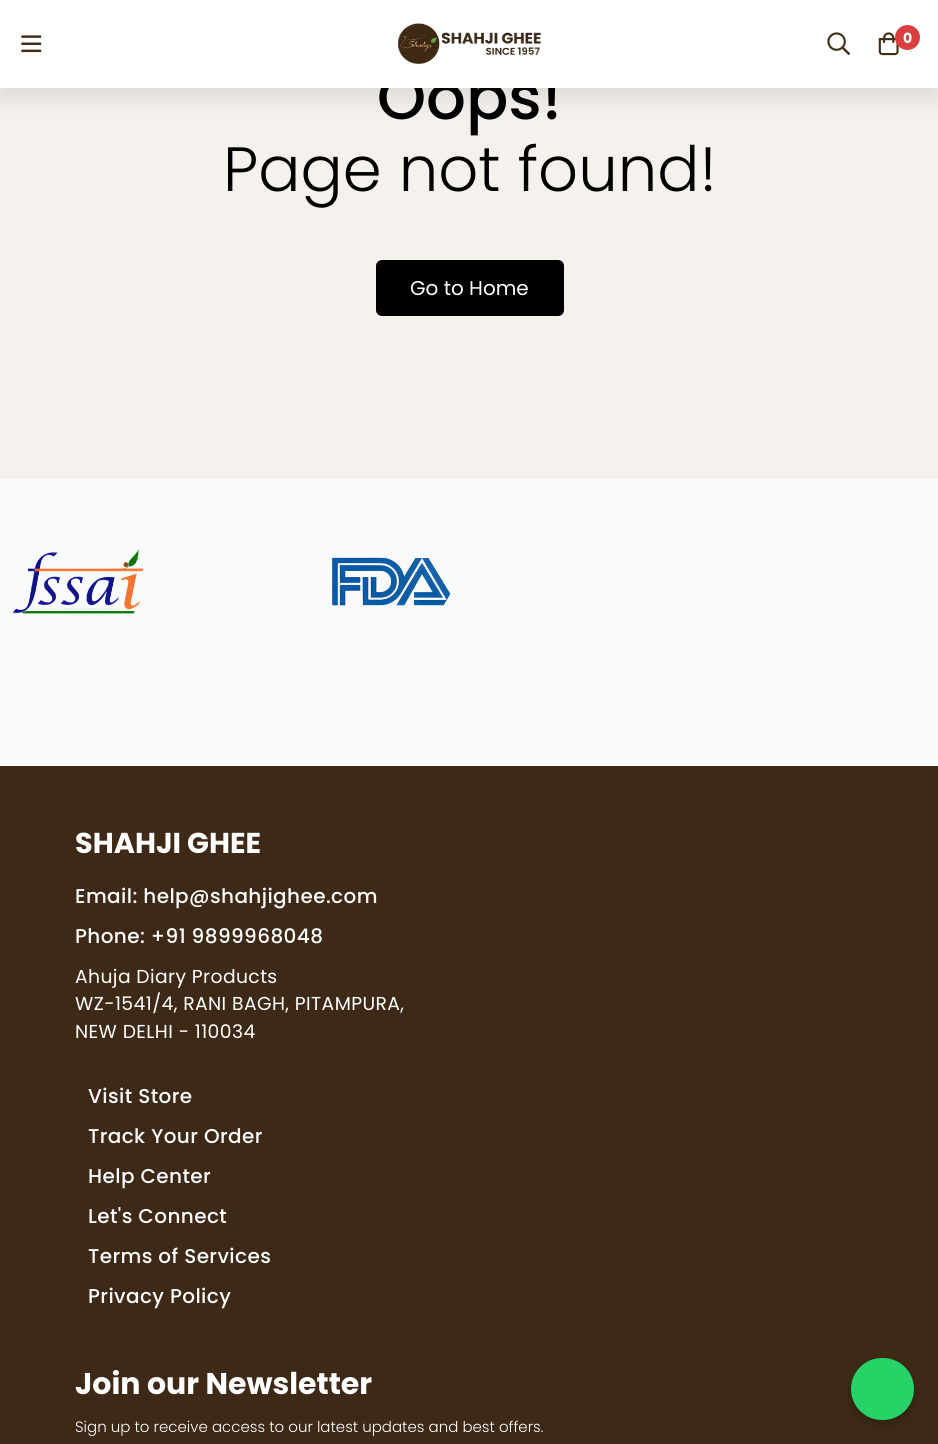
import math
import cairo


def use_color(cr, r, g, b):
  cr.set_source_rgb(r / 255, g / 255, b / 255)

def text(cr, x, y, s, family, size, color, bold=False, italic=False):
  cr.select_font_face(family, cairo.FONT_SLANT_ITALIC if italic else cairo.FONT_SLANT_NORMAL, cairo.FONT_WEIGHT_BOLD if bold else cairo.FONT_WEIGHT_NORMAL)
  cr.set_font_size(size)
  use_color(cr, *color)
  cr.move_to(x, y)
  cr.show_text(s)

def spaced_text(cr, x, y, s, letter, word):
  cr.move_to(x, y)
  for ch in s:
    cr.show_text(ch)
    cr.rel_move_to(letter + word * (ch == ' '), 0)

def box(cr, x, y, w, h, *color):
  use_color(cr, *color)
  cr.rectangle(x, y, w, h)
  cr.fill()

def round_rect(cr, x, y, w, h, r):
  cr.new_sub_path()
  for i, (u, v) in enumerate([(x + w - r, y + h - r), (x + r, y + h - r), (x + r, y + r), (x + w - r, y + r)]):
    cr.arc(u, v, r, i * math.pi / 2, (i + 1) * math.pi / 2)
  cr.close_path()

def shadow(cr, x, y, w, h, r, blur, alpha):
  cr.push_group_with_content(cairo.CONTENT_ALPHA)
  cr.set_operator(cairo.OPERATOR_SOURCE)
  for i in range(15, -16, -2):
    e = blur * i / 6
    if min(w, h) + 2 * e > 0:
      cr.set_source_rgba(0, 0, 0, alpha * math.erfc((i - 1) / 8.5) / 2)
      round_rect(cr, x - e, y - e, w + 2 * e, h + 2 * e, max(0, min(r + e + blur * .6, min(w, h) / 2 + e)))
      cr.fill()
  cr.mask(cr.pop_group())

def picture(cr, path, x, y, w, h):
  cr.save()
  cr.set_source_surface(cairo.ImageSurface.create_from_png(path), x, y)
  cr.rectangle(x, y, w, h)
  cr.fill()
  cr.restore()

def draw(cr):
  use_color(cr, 245, 241, 237)
  cr.paint()
  use_color(cr, 0, 0, 0)
  shadow(cr, 0, 10, 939, 88, 0, 12.5, 0.1)
  use_color(cr, 0, 0, 0)
  round_rect(cr, 376, 260, 188, 56, 6)
  cr.fill()
  box(cr, 0, 479, 938, 287, 248, 250, 252)
  picture(cr, "img_05.png", 12, 549, 132, 65)
  picture(cr, "img_06.png", 332, 557, 119, 49)
  box(cr, 0, 766, 938, 678, 61, 41, 22)
  use_color(cr, 0, 0, 0)
  shadow(cr, 851, 1363, 63, 62, 31, 5, 0.2)
  use_color(cr, 37, 211, 102)
  round_rect(cr, 851, 1358, 63, 62, 31)
  cr.fill()
  text(cr, 377, 119, "Oops!", "Poppins Medium", 62.5, (0, 0, 0))
  box(cr, 0, 0, 938, 88, 255, 255, 255)
  picture(cr, "img_04.png", 878, 32, 21, 24)
  use_color(cr, 218, 63, 63)
  cr.arc(907.5, 37.5, 12.5, 0, 2 * math.pi)
  cr.fill()
  text(cr, 903, 43, "0", "Poppins", 14, (255, 255, 255), bold=True)
  picture(cr, "img_03.png", 827, 32, 24, 24)
  picture(cr, "img_01.png", 21, 35, 21, 18)
  picture(cr, "img_02.png", 398, 23, 143, 41)
  text(cr, 223, 191, "Page not found!", "Poppins Light", 62.5, (0, 0, 0))
  text(cr, 410, 295, "Go to Home", "Poppins", 20, (255, 255, 255))
  text(cr, 75, 853, "SHAHJI GHEE", "Poppins", 28.75, (255, 255, 255), bold=True)
  cr.select_font_face("Poppins Medium")
  cr.set_font_size(20)
  spaced_text(cr, 75, 903, "Email: help@shahjighee.com", 0.4, 0)
  spaced_text(cr, 75, 943, "Phone: +91 9899968048", 0.4, 0)
  cr.select_font_face("Poppins")
  cr.set_font_size(18.75)
  spaced_text(cr, 75, 983, "Ahuja Diary Products", 0.4, 0)
  spaced_text(cr, 75, 1010, "WZ-1541/4, RANI BAGH, PITAMPURA,", 0.4, 0)
  spaced_text(cr, 75, 1038, "NEW DELHI - 110034", 0.4, 0)
  cr.select_font_face("Poppins Medium")
  cr.set_font_size(20)
  spaced_text(cr, 88, 1103, "Visit Store", 0.4, 0)
  spaced_text(cr, 88, 1143, "Track Your Order", 0.4, 0)
  spaced_text(cr, 88, 1183, "Help Center", 0.4, 0)
  spaced_text(cr, 88, 1223, "Let's Connect", 0.4, 0)
  spaced_text(cr, 88, 1263, "Terms of Services", 0.4, 0)
  spaced_text(cr, 88, 1303, "Privacy Policy", 0.4, 0)
  text(cr, 75, 1394, "Join our Newsletter", "Poppins", 30, (255, 255, 255), bold=True)
  text(cr, 75, 1432, "Sign up to receive access to our latest updates and best offers.", "Poppins Light", 15, (255, 255, 255))


surface = cairo.ImageSurface(cairo.FORMAT_RGB24, 938, 1444)
cr = cairo.Context(surface)
options = cairo.FontOptions()
options.set_hint_metrics(cairo.HINT_METRICS_OFF)
options.set_hint_style(cairo.HINT_STYLE_NONE)
cr.set_font_options(options)
cr.set_miter_limit(4)
draw(cr)
surface.write_to_png("out.png")
